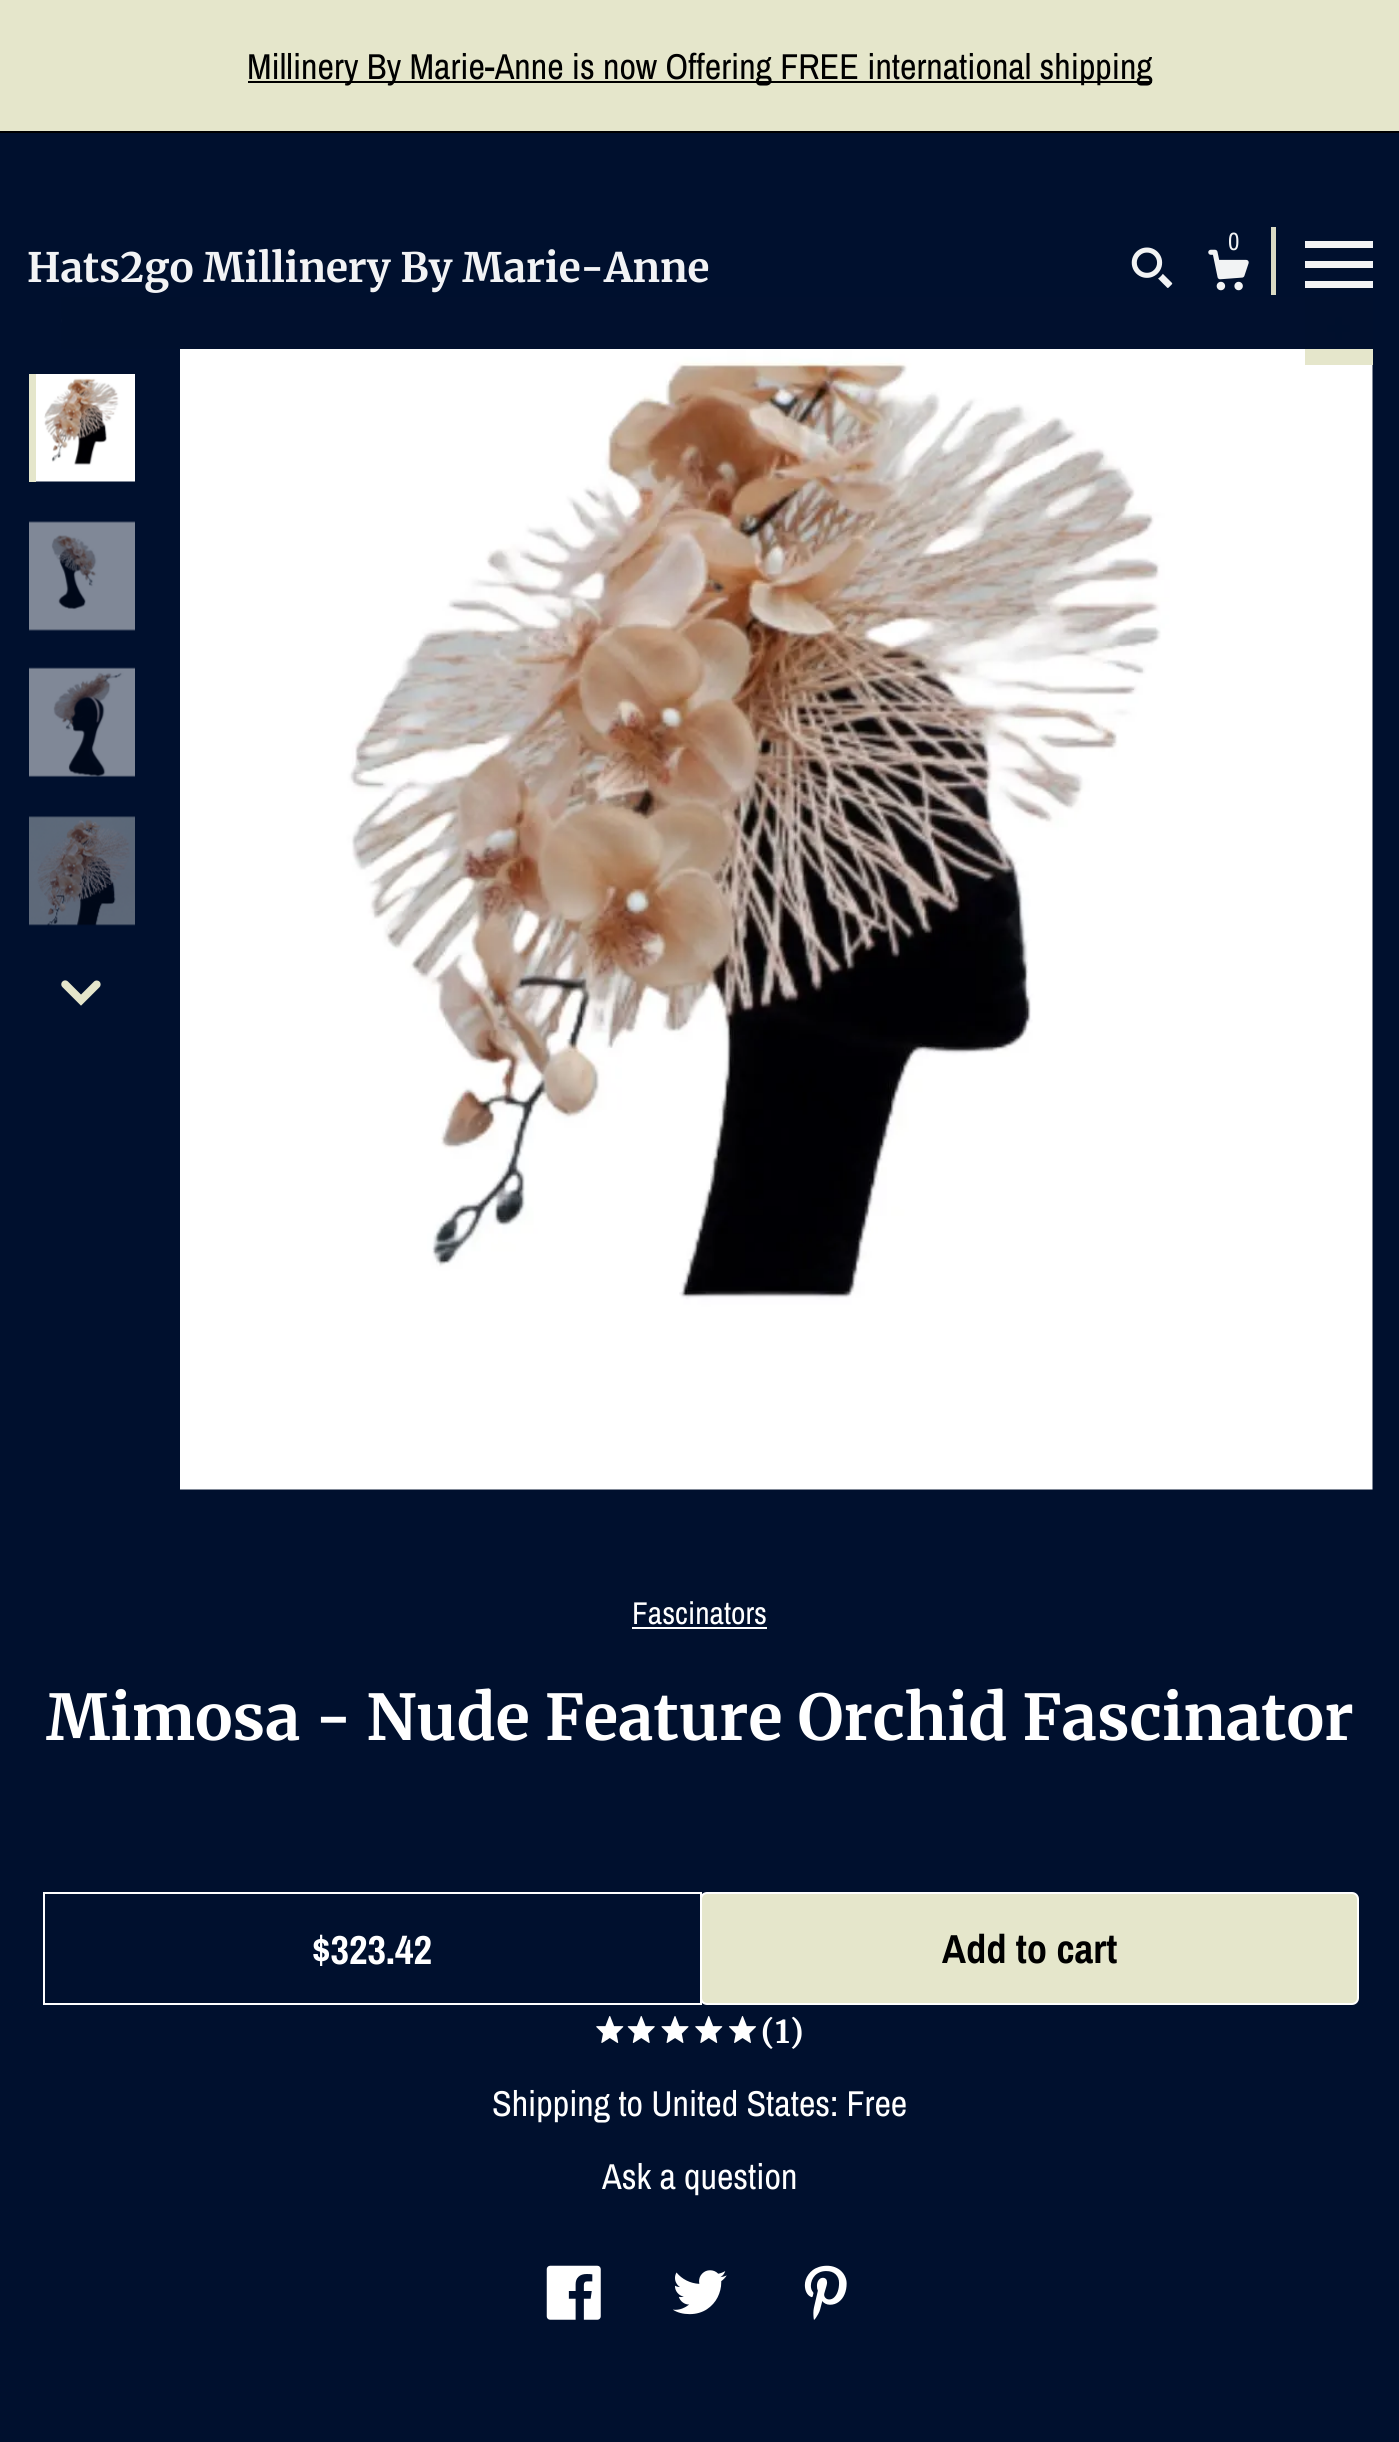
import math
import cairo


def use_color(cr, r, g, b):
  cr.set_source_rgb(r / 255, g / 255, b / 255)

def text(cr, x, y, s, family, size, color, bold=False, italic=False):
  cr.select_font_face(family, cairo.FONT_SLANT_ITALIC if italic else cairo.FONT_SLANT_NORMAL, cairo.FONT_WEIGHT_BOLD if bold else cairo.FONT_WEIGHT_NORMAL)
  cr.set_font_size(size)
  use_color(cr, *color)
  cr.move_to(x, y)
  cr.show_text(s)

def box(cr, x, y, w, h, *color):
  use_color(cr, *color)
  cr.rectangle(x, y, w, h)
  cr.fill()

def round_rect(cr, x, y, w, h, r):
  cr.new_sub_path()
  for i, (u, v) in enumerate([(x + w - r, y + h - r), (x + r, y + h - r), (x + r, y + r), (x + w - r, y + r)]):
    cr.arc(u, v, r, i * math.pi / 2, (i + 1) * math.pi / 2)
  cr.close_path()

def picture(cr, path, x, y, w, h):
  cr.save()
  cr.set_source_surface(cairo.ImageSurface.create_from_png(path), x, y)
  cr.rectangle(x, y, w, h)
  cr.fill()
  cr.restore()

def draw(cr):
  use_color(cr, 0, 16, 46)
  cr.paint()
  box(cr, 0, 0, 1399, 131, 229, 230, 203)
  box(cr, 0, 131, 1399, 2, 0, 0, 0)
  box(cr, 248, 81, 904, 2, 0, 0, 0)
  picture(cr, "img_03.png", 61, 299, 40, 26)
  picture(cr, "img_09.png", 180, 297, 1193, 1193)
  box(cr, 1305, 297, 68, 68, 229, 230, 203)
  picture(cr, "img_10.png", 1327, 317, 23, 23)
  cr.set_source_rgba(0, 0.063, 0.18, 0.95)
  cr.rectangle(61, 297, 1312, 52)
  cr.fill()
  cr.rectangle(62, 297, 1311, 52)
  cr.fill()
  picture(cr, "img_01.png", 1131, 247, 42, 41)
  picture(cr, "img_02.png", 1208, 249, 41, 42)
  box(cr, 1271, 227, 5, 68, 218, 219, 195)
  box(cr, 1305, 241, 68, 7, 242, 243, 245)
  box(cr, 1305, 261, 68, 7, 242, 243, 245)
  box(cr, 1305, 281, 68, 7, 242, 243, 245)
  picture(cr, "img_04.png", 36, 374, 99, 108)
  box(cr, 29, 374, 7, 108, 229, 230, 203)
  picture(cr, "img_05.png", 29, 521, 106, 110)
  picture(cr, "img_06.png", 29, 667, 106, 110)
  picture(cr, "img_07.png", 29, 816, 106, 110)
  picture(cr, "img_08.png", 61, 980, 40, 26)
  box(cr, 632, 1627, 135, 2, 255, 255, 255)
  use_color(cr, 229, 230, 203)
  round_rect(cr, 701, 1893, 657, 111, 6)
  cr.fill_preserve()
  use_color(cr, 255, 255, 255)
  cr.stroke()
  cr.rectangle(44, 1893, 657, 111)
  cr.stroke()
  picture(cr, "img_11.png", 596, 2016, 28, 27)
  picture(cr, "img_12.png", 627, 2016, 28, 27)
  picture(cr, "img_13.png", 661, 2016, 28, 27)
  picture(cr, "img_11.png", 695, 2016, 28, 27)
  picture(cr, "img_14.png", 729, 2016, 27, 27)
  picture(cr, "img_15.png", 546, 2265, 55, 55)
  picture(cr, "img_16.png", 673, 2270, 54, 45)
  picture(cr, "img_17.png", 804, 2265, 43, 55)
  text(cr, 247, 79, "Millinery By Marie-Anne is now Offering FREE international shipping", "Archivo Narrow", 36, (0, 0, 0))
  text(cr, 1228, 250, "0", "Archivo Narrow", 25, (242, 243, 245))
  text(cr, 27, 282, "Hats2go Millinery By Marie-Anne", "Merriweather", 40.5, (242, 243, 245), bold=True)
  text(cr, 632, 1624, "Fascinators", "Archivo Narrow", 31.5, (255, 255, 255))
  text(cr, 46, 1740, "Mimosa - Nude Feature Orchid Fascinator", "Merriweather", 63, (255, 255, 255), bold=True)
  text(cr, 312, 1964, "$323.42", "Archivo Narrow", 40.5, (255, 255, 255), bold=True)
  text(cr, 942, 1963, "Add to cart", "Archivo Narrow", 40.5, (0, 0, 0), bold=True)
  text(cr, 761, 2043, "(1)", "Merriweather", 31.5, (255, 255, 255), bold=True)
  text(cr, 492, 2116, "Shipping to United States: Free", "Archivo Narrow", 36, (255, 255, 255))
  text(cr, 602, 2189, "Ask a question", "Archivo Narrow", 36, (255, 255, 255))


surface = cairo.ImageSurface(cairo.FORMAT_RGB24, 1399, 2442)
cr = cairo.Context(surface)
options = cairo.FontOptions()
options.set_hint_metrics(cairo.HINT_METRICS_OFF)
options.set_hint_style(cairo.HINT_STYLE_NONE)
cr.set_font_options(options)
cr.set_miter_limit(4)
draw(cr)
surface.write_to_png("out.png")
